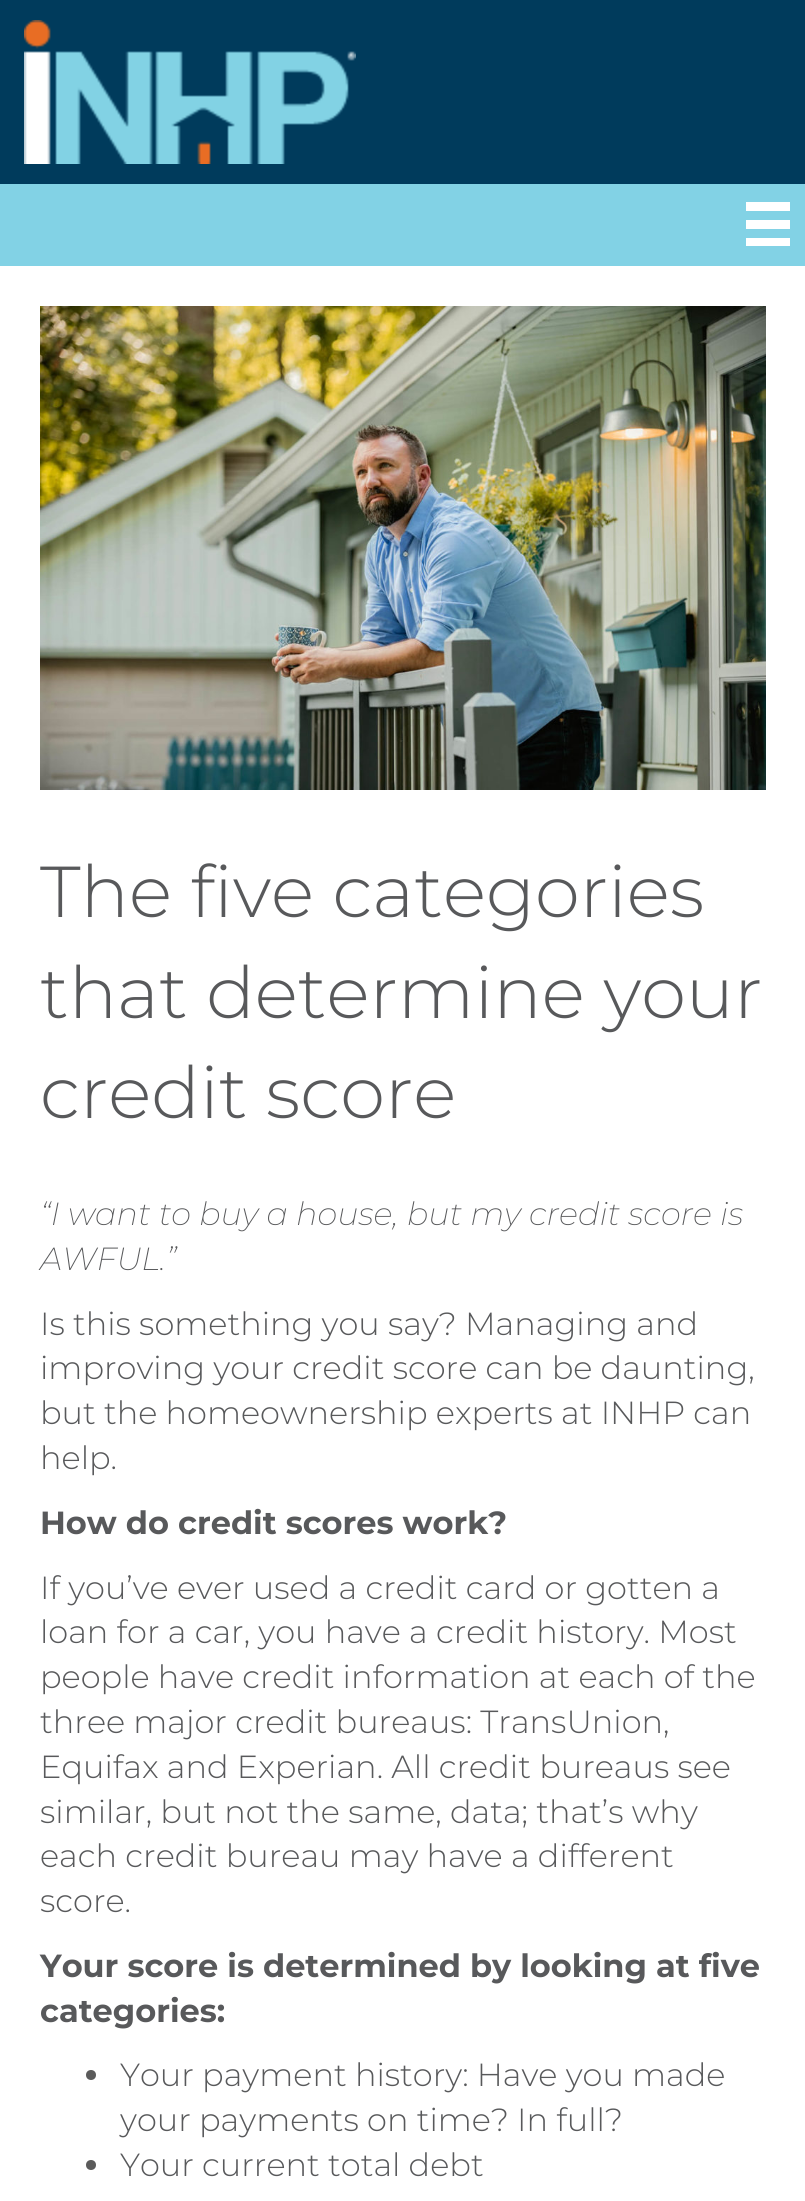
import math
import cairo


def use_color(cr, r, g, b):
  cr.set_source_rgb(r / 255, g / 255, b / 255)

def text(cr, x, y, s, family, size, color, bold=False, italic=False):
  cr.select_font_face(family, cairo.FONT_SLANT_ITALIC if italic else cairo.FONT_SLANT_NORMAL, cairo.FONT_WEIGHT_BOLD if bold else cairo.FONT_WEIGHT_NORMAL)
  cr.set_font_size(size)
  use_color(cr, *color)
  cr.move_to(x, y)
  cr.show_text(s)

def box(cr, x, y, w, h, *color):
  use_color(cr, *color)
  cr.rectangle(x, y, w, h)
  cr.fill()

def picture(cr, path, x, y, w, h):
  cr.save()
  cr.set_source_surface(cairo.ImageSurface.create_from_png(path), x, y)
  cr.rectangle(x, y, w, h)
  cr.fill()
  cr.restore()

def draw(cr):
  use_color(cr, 255, 255, 255)
  cr.paint()
  box(cr, 0, 0, 805, 184, 0, 59, 92)
  picture(cr, "img_01.png", 24, 20, 332, 144)
  box(cr, 0, 184, 805, 82, 130, 210, 229)
  box(cr, 746, 202, 44, 9, 255, 255, 255)
  box(cr, 746, 220, 44, 9, 255, 255, 255)
  box(cr, 746, 238, 44, 8, 255, 255, 255)
  picture(cr, "img_02.png", 40, 306, 726, 484)
  use_color(cr, 91, 91, 91)
  cr.arc(91, 2075, 5, 0, 2 * math.pi)
  cr.fill()
  cr.arc(91, 2165, 5, 0, 2 * math.pi)
  cr.fill()
  text(cr, 40, 917, "The five categories", "Montserrat Light", 72, (88, 89, 91))
  text(cr, 40, 1018, "that determine your", "Montserrat Light", 72, (88, 89, 91))
  text(cr, 40, 1118, "credit score", "Montserrat Light", 72, (88, 89, 91))
  text(cr, 40, 1225, "“I want to buy a house, but my credit score is", "Montserrat ExtraLight", 32, (88, 89, 91), italic=True)
  text(cr, 40, 1270, "AWFUL.”", "Montserrat ExtraLight", 32, (88, 89, 91), italic=True)
  text(cr, 40, 1335, "Is this something you say? Managing and", "Montserrat Light", 32, (88, 89, 91))
  text(cr, 40, 1379, "improving your credit score can be daunting,", "Montserrat Light", 32, (88, 89, 91))
  text(cr, 40, 1424, "but the homeownership experts at INHP can", "Montserrat Light", 32, (88, 89, 91))
  text(cr, 40, 1469, "help.", "Montserrat Light", 32, (88, 89, 91))
  text(cr, 40, 1534, "How do credit scores work?", "Montserrat", 32, (88, 89, 91), bold=True)
  text(cr, 40, 1599, "If you’ve ever used a credit card or gotten a", "Montserrat Light", 32, (88, 89, 91))
  text(cr, 40, 1643, "loan for a car, you have a credit history. Most", "Montserrat Light", 32, (88, 89, 91))
  text(cr, 40, 1688, "people have credit information at each of the", "Montserrat Light", 32, (88, 89, 91))
  text(cr, 40, 1733, "three major credit bureaus: TransUnion,", "Montserrat Light", 32, (88, 89, 91))
  text(cr, 40, 1778, "Equifax and Experian. All credit bureaus see", "Montserrat Light", 32, (88, 89, 91))
  text(cr, 40, 1823, "similar, but not the same, data; that’s why", "Montserrat Light", 32, (88, 89, 91))
  text(cr, 40, 1867, "each credit bureau may have a different", "Montserrat Light", 32, (88, 89, 91))
  text(cr, 40, 1912, "score.", "Montserrat Light", 32, (88, 89, 91))
  text(cr, 40, 1977, "Your score is determined by looking at five", "Montserrat", 32, (88, 89, 91), bold=True)
  text(cr, 40, 2022, "categories:", "Montserrat", 32, (88, 89, 91), bold=True)
  text(cr, 120, 2086, "Your payment history: Have you made", "Montserrat Light", 32, (88, 89, 91))
  text(cr, 120, 2131, "your payments on time? In full?", "Montserrat Light", 32, (88, 89, 91))
  text(cr, 120, 2176, "Your current total debt", "Montserrat Light", 32, (88, 89, 91))


surface = cairo.ImageSurface(cairo.FORMAT_RGB24, 805, 2201)
cr = cairo.Context(surface)
options = cairo.FontOptions()
options.set_hint_metrics(cairo.HINT_METRICS_OFF)
options.set_hint_style(cairo.HINT_STYLE_NONE)
cr.set_font_options(options)
cr.set_miter_limit(4)
draw(cr)
surface.write_to_png("out.png")
